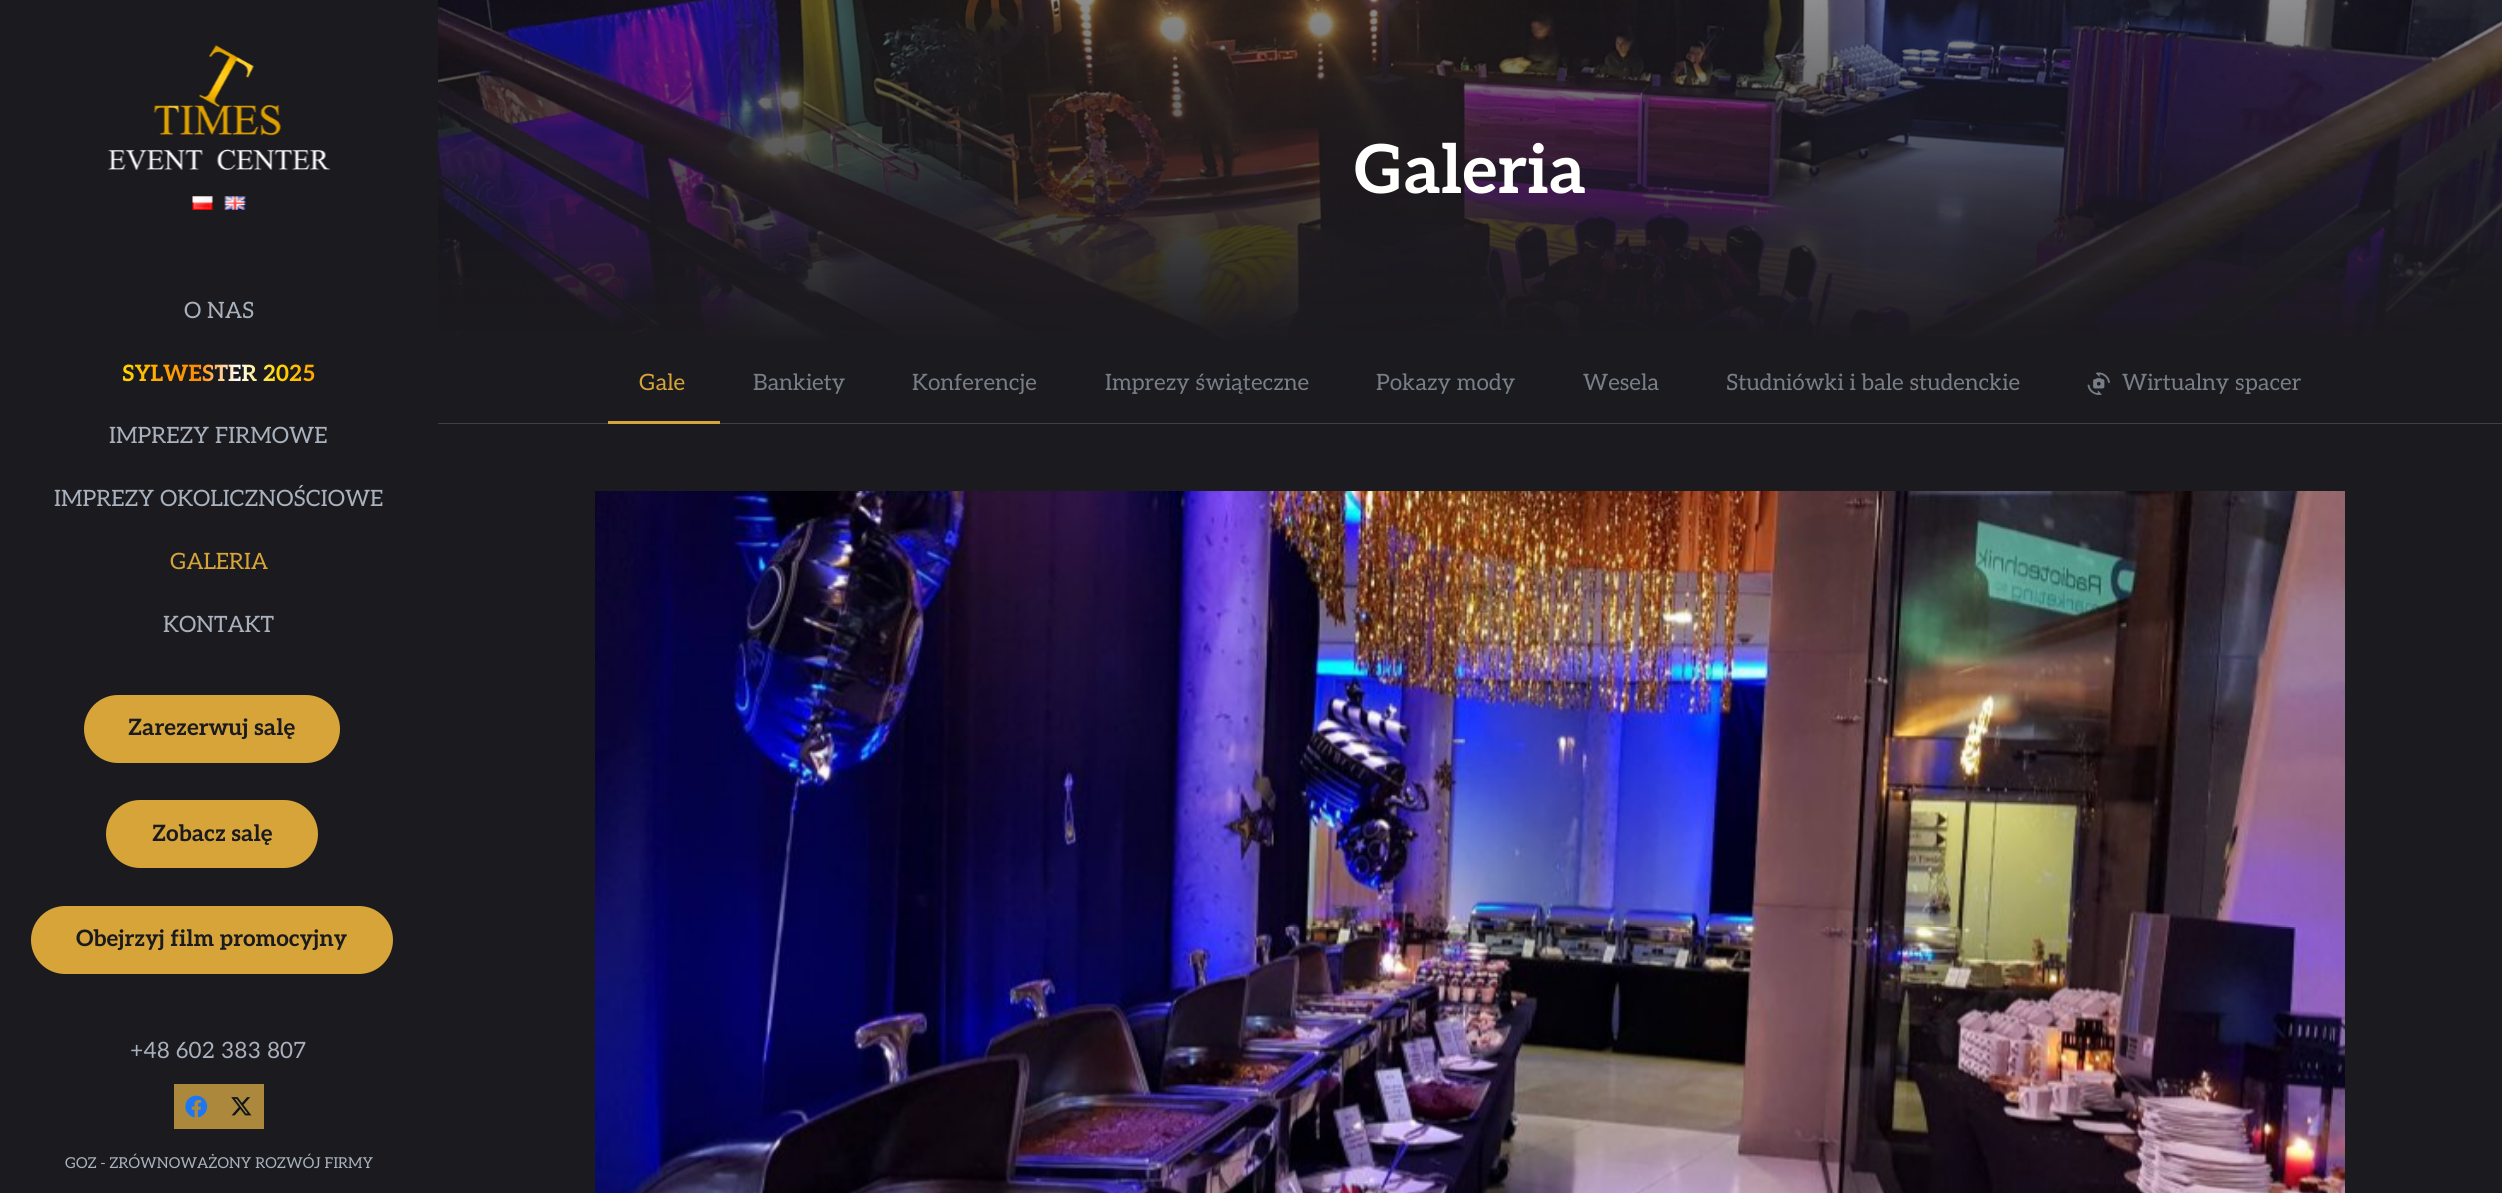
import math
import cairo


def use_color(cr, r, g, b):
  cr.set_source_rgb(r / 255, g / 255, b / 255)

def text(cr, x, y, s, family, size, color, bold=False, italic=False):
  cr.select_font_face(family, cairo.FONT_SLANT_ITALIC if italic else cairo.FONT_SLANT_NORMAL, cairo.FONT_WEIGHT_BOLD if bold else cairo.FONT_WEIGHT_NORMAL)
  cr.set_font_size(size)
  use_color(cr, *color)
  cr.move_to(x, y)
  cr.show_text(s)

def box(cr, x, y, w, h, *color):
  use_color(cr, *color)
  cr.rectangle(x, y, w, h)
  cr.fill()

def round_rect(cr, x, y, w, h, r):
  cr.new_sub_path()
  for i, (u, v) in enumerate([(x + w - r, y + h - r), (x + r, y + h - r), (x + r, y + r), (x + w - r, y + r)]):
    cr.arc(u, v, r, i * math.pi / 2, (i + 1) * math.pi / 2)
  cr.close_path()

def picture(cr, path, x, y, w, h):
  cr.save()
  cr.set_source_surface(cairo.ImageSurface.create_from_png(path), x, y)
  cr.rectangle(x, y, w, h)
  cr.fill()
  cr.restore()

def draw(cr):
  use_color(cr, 27, 26, 30)
  cr.paint()
  picture(cr, "img_01.png", 438, 0, 2064, 340)
  gradient = cairo.LinearGradient(1470, 0, 1470, 344)
  gradient.add_color_stop_rgba(0, 0.106, 0.102, 0.118, 0.5)
  gradient.add_color_stop_rgba(1, 0.106, 0.102, 0.118, 1)
  cr.set_source(gradient)
  cr.rectangle(438, 0, 2064, 340)
  cr.fill()
  picture(cr, "img_02.png", 2087, 372, 23, 23)
  box(cr, 438, 423, 2064, 1, 64, 63, 70)
  box(cr, 608, 421, 112, 3, 214, 164, 56)
  picture(cr, "img_03.png", 595, 491, 1750, 702)
  picture(cr, "img_04.png", 108, 45, 223, 125)
  picture(cr, "img_05.png", 192, 196, 21, 14)
  picture(cr, "img_06.png", 224, 196, 22, 14)
  round_rect(cr, 84, 695, 256, 68, 34)
  cr.fill()
  round_rect(cr, 106, 800, 212, 68, 34)
  cr.fill()
  round_rect(cr, 31, 906, 362, 68, 34)
  cr.fill()
  box(cr, 174, 1084, 90, 45, 171, 136, 60)
  picture(cr, "img_07.png", 185, 1095, 23, 23)
  picture(cr, "img_08.png", 231, 1097, 21, 19)
  text(cr, 1354, 193, "Galeria", "Aleo", 67.5, (255, 255, 254), bold=True)
  text(cr, 639, 390, "Gale", "Aleo", 22.5, (214, 164, 56))
  text(cr, 753, 390, "Bankiety", "Aleo", 22.5, (120, 126, 135))
  text(cr, 912, 390, "Konferencje", "Aleo", 22.5, (120, 126, 135))
  text(cr, 1105, 390, "Imprezy świąteczne", "Aleo", 22.5, (120, 126, 135))
  text(cr, 1376, 390, "Pokazy mody", "Aleo", 22.5, (120, 126, 135))
  text(cr, 1583, 390, "Wesela", "Aleo", 22.5, (120, 126, 135))
  text(cr, 1726, 390, "Studniówki i bale studenckie", "Aleo", 22.5, (120, 126, 135))
  text(cr, 2122, 390, "Wirtualny spacer", "Aleo", 22.5, (120, 126, 135))
  text(cr, 184, 318, "O NAS", "Aleo", 22.5, (168, 177, 189))
  cr.select_font_face("Aleo", cairo.FONT_SLANT_NORMAL, cairo.FONT_WEIGHT_BOLD)
  gradient = cairo.LinearGradient(122, 374, 316, 374)
  gradient.add_color_stop_rgba(0, 1, 0.843, 0, 1)
  gradient.add_color_stop_rgba(0.2, 1, 0.647, 0, 1)
  gradient.add_color_stop_rgba(0.4, 1, 0.549, 0, 1)
  gradient.add_color_stop_rgba(0.6, 1, 1, 1, 1)
  gradient.add_color_stop_rgba(0.8, 1, 0.843, 0, 1)
  gradient.add_color_stop_rgba(1, 1, 0.647, 0, 1)
  cr.set_source(gradient)
  cr.move_to(122, 381)
  cr.show_text("SYLWESTER 2025")
  text(cr, 109, 443, "IMPREZY FIRMOWE", "Aleo", 22.5, (168, 177, 189))
  text(cr, 54, 506, "IMPREZY OKOLICZNOŚCIOWE", "Aleo", 22.5, (168, 177, 189))
  text(cr, 170, 569, "GALERIA", "Aleo", 22.5, (214, 164, 56))
  text(cr, 163, 632, "KONTAKT", "Aleo", 22.5, (168, 177, 189))
  text(cr, 128, 735, "Zarezerwuj salę", "Aleo", 22.5, (27, 26, 30), bold=True)
  text(cr, 152, 841, "Zobacz salę", "Aleo", 22.5, (27, 26, 30), bold=True)
  text(cr, 76, 946, "Obejrzyj film promocyjny", "Aleo", 22.5, (27, 26, 30), bold=True)
  text(cr, 130, 1058, "+48 602 383 807", "Aleo", 22.5, (168, 177, 189))
  text(cr, 65, 1168, "GOZ - ZRÓWNOWAŻONY ROZWÓJ FIRMY", "Aleo", 15, (168, 177, 189))


surface = cairo.ImageSurface(cairo.FORMAT_RGB24, 2502, 1193)
cr = cairo.Context(surface)
options = cairo.FontOptions()
options.set_hint_metrics(cairo.HINT_METRICS_OFF)
options.set_hint_style(cairo.HINT_STYLE_NONE)
cr.set_font_options(options)
cr.set_miter_limit(4)
draw(cr)
surface.write_to_png("out.png")
